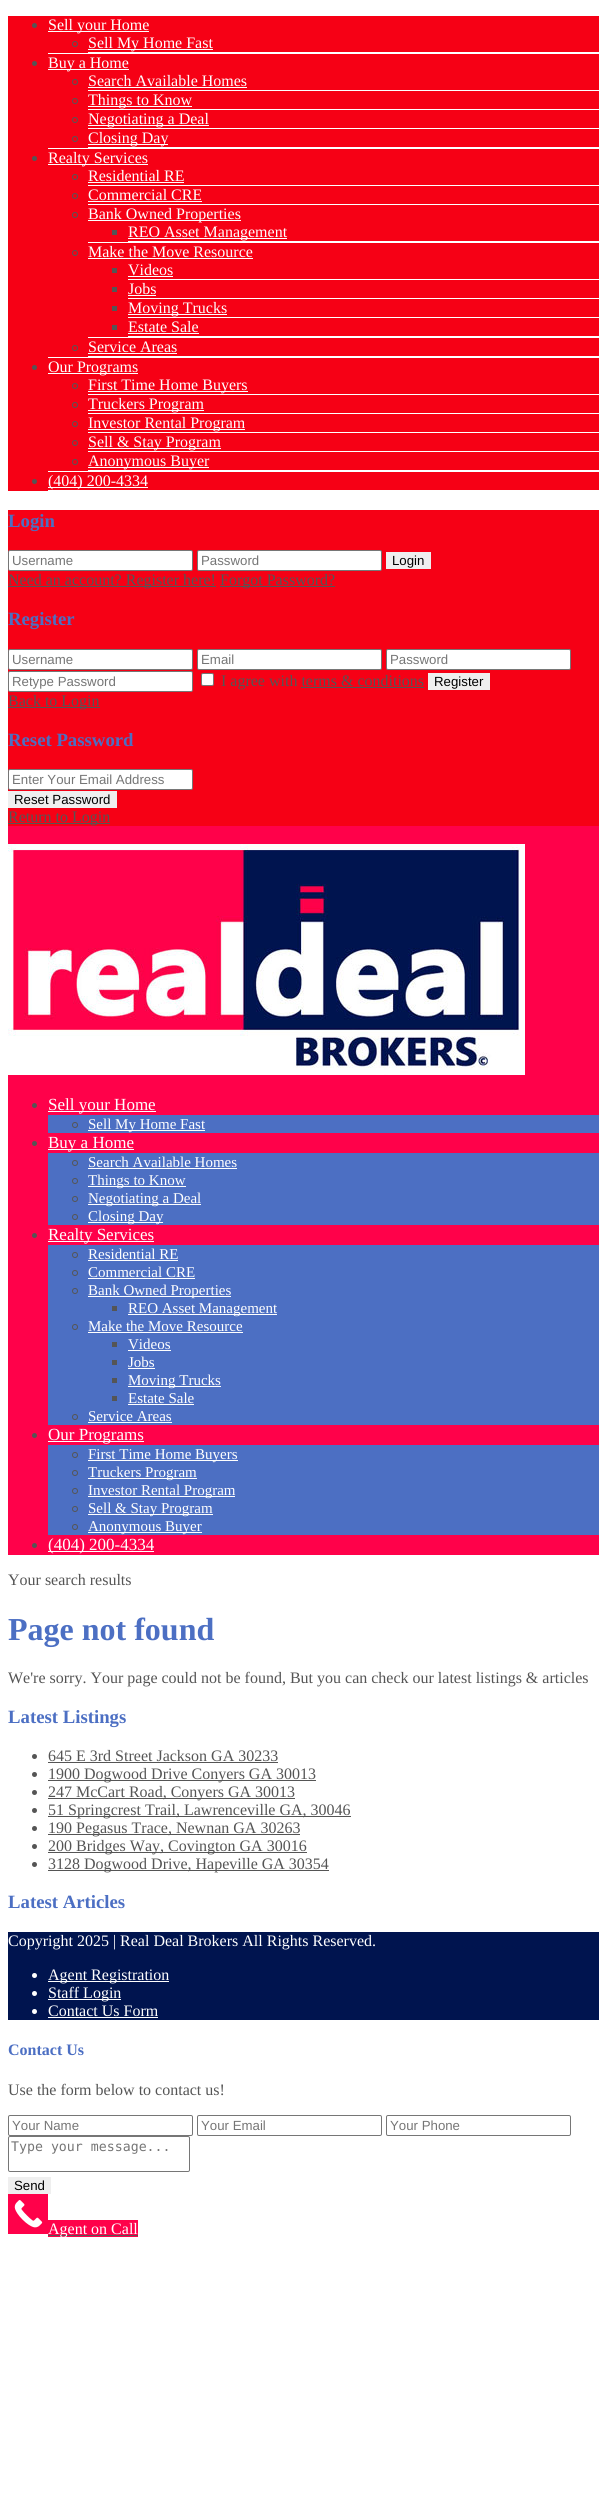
import math
import cairo


def use_color(cr, r, g, b):
  cr.set_source_rgb(r / 255, g / 255, b / 255)

def text(cr, x, y, s, family, size, color, bold=False, italic=False):
  cr.select_font_face(family, cairo.FONT_SLANT_ITALIC if italic else cairo.FONT_SLANT_NORMAL, cairo.FONT_WEIGHT_BOLD if bold else cairo.FONT_WEIGHT_NORMAL)
  cr.set_font_size(size)
  use_color(cr, *color)
  cr.move_to(x, y)
  cr.show_text(s)

def box(cr, x, y, w, h, *color):
  use_color(cr, *color)
  cr.rectangle(x, y, w, h)
  cr.fill()

def round_rect(cr, x, y, w, h, r):
  cr.new_sub_path()
  for i, (u, v) in enumerate([(x + w - r, y + h - r), (x + r, y + h - r), (x + r, y + r), (x + w - r, y + r)]):
    cr.arc(u, v, r, i * math.pi / 2, (i + 1) * math.pi / 2)
  cr.close_path()

def picture(cr, path, x, y, w, h):
  cr.save()
  cr.set_source_surface(cairo.ImageSurface.create_from_png(path), x, y)
  cr.rectangle(x, y, w, h)
  cr.fill()
  cr.restore()

def draw(cr):
  use_color(cr, 255, 255, 255)
  cr.paint()
  box(cr, 8, 16, 591, 475, 246, 0, 21)
  box(cr, 48, 53, 551, 1, 255, 255, 255)
  use_color(cr, 85, 85, 85)
  cr.arc(34.5, 25.5, 2.5, 0, 2 * math.pi)
  cr.fill()
  box(cr, 48, 31, 101, 1, 255, 255, 255)
  box(cr, 88, 52, 511, 1, 255, 255, 255)
  cr.arc(75, 44, 2.5, 0, 2 * math.pi)
  use_color(cr, 85, 85, 85)
  cr.set_line_width(1)
  cr.stroke()
  box(cr, 88, 49, 125, 1, 255, 255, 255)
  box(cr, 48, 148, 551, 1, 255, 255, 255)
  use_color(cr, 85, 85, 85)
  cr.arc(34.5, 63.5, 2.5, 0, 2 * math.pi)
  cr.fill()
  box(cr, 48, 69, 81, 1, 255, 255, 255)
  box(cr, 88, 90, 511, 1, 255, 255, 255)
  cr.arc(75, 82, 2.5, 0, 2 * math.pi)
  use_color(cr, 85, 85, 85)
  cr.stroke()
  box(cr, 88, 87, 159, 1, 255, 255, 255)
  box(cr, 88, 109, 511, 1, 255, 255, 255)
  cr.arc(75, 101, 2.5, 0, 2 * math.pi)
  use_color(cr, 85, 85, 85)
  cr.stroke()
  box(cr, 88, 106, 104, 1, 255, 255, 255)
  box(cr, 88, 128, 511, 1, 255, 255, 255)
  cr.arc(75, 120, 2.5, 0, 2 * math.pi)
  use_color(cr, 85, 85, 85)
  cr.stroke()
  box(cr, 88, 125, 121, 1, 255, 255, 255)
  box(cr, 88, 147, 511, 1, 255, 255, 255)
  cr.arc(75, 139, 2.5, 0, 2 * math.pi)
  use_color(cr, 85, 85, 85)
  cr.stroke()
  box(cr, 88, 144, 80, 1, 255, 255, 255)
  box(cr, 48, 357, 551, 1, 255, 255, 255)
  use_color(cr, 85, 85, 85)
  cr.arc(34.5, 158.5, 2.5, 0, 2 * math.pi)
  cr.fill()
  box(cr, 48, 164, 100, 1, 255, 255, 255)
  box(cr, 88, 185, 511, 1, 255, 255, 255)
  cr.arc(75, 177, 2.5, 0, 2 * math.pi)
  use_color(cr, 85, 85, 85)
  cr.stroke()
  box(cr, 88, 182, 96, 1, 255, 255, 255)
  box(cr, 88, 204, 511, 1, 255, 255, 255)
  cr.arc(75, 196, 2.5, 0, 2 * math.pi)
  use_color(cr, 85, 85, 85)
  cr.stroke()
  box(cr, 88, 201, 114, 1, 255, 255, 255)
  box(cr, 88, 242, 511, 1, 255, 255, 255)
  cr.arc(75, 215, 2.5, 0, 2 * math.pi)
  use_color(cr, 85, 85, 85)
  cr.stroke()
  box(cr, 88, 220, 153, 1, 255, 255, 255)
  box(cr, 128, 241, 471, 1, 255, 255, 255)
  box(cr, 112, 230, 5, 5, 85, 85, 85)
  box(cr, 128, 238, 159, 1, 255, 255, 255)
  box(cr, 88, 337, 511, 1, 255, 255, 255)
  cr.arc(75, 253, 2.5, 0, 2 * math.pi)
  use_color(cr, 85, 85, 85)
  cr.stroke()
  box(cr, 88, 258, 165, 1, 255, 255, 255)
  box(cr, 128, 279, 471, 1, 255, 255, 255)
  box(cr, 112, 268, 5, 5, 85, 85, 85)
  box(cr, 128, 276, 45, 1, 255, 255, 255)
  box(cr, 128, 298, 471, 1, 255, 255, 255)
  box(cr, 112, 287, 5, 5, 85, 85, 85)
  box(cr, 128, 295, 28, 1, 255, 255, 255)
  box(cr, 128, 317, 471, 1, 255, 255, 255)
  box(cr, 112, 306, 5, 5, 85, 85, 85)
  box(cr, 128, 314, 99, 1, 255, 255, 255)
  box(cr, 128, 336, 471, 1, 255, 255, 255)
  box(cr, 112, 325, 5, 5, 85, 85, 85)
  box(cr, 128, 333, 71, 1, 255, 255, 255)
  box(cr, 88, 356, 511, 1, 255, 255, 255)
  cr.arc(75, 348, 2.5, 0, 2 * math.pi)
  use_color(cr, 85, 85, 85)
  cr.stroke()
  box(cr, 88, 353, 89, 1, 255, 255, 255)
  box(cr, 48, 471, 551, 1, 255, 255, 255)
  use_color(cr, 85, 85, 85)
  cr.arc(34.5, 367.5, 2.5, 0, 2 * math.pi)
  cr.fill()
  box(cr, 48, 373, 90, 1, 255, 255, 255)
  box(cr, 88, 394, 511, 1, 255, 255, 255)
  cr.arc(75, 386, 2.5, 0, 2 * math.pi)
  use_color(cr, 85, 85, 85)
  cr.stroke()
  box(cr, 88, 391, 160, 1, 255, 255, 255)
  box(cr, 88, 413, 511, 1, 255, 255, 255)
  cr.arc(75, 405, 2.5, 0, 2 * math.pi)
  use_color(cr, 85, 85, 85)
  cr.stroke()
  box(cr, 88, 410, 116, 1, 255, 255, 255)
  box(cr, 88, 432, 511, 1, 255, 255, 255)
  cr.arc(75, 424, 2.5, 0, 2 * math.pi)
  use_color(cr, 85, 85, 85)
  cr.stroke()
  box(cr, 88, 429, 157, 1, 255, 255, 255)
  box(cr, 88, 451, 511, 1, 255, 255, 255)
  cr.arc(75, 443, 2.5, 0, 2 * math.pi)
  use_color(cr, 85, 85, 85)
  cr.stroke()
  box(cr, 88, 448, 133, 1, 255, 255, 255)
  box(cr, 88, 470, 511, 1, 255, 255, 255)
  cr.arc(75, 462, 2.5, 0, 2 * math.pi)
  use_color(cr, 85, 85, 85)
  cr.stroke()
  box(cr, 88, 467, 121, 1, 255, 255, 255)
  box(cr, 48, 490, 551, 1, 255, 255, 255)
  use_color(cr, 85, 85, 85)
  cr.arc(34.5, 481.5, 2.5, 0, 2 * math.pi)
  cr.fill()
  box(cr, 48, 487, 100, 1, 255, 255, 255)
  box(cr, 8, 510, 591, 316, 246, 0, 21)
  use_color(cr, 255, 255, 255)
  round_rect(cr, 8.5, 550.5, 184, 20, 1.5)
  cr.fill_preserve()
  use_color(cr, 118, 118, 118)
  cr.stroke()
  use_color(cr, 255, 255, 255)
  round_rect(cr, 197.5, 550.5, 184, 20, 1.5)
  cr.fill_preserve()
  use_color(cr, 118, 118, 118)
  cr.stroke()
  box(cr, 386, 552, 45, 17, 239, 239, 239)
  box(cr, 8, 586, 208, 1, 85, 85, 85)
  box(cr, 220, 586, 115, 1, 85, 85, 85)
  use_color(cr, 255, 255, 255)
  round_rect(cr, 8.5, 649.5, 184, 20, 1.5)
  cr.fill_preserve()
  use_color(cr, 118, 118, 118)
  cr.stroke()
  use_color(cr, 255, 255, 255)
  round_rect(cr, 197.5, 649.5, 184, 20, 1.5)
  cr.fill_preserve()
  use_color(cr, 118, 118, 118)
  cr.stroke()
  use_color(cr, 255, 255, 255)
  round_rect(cr, 386.5, 649.5, 184, 20, 1.5)
  cr.fill_preserve()
  use_color(cr, 118, 118, 118)
  cr.stroke()
  use_color(cr, 255, 255, 255)
  round_rect(cr, 8.5, 671.5, 184, 20, 1.5)
  cr.fill_preserve()
  use_color(cr, 118, 118, 118)
  cr.stroke()
  use_color(cr, 255, 255, 255)
  round_rect(cr, 201.5, 673.5, 12, 12, 1.5)
  cr.fill_preserve()
  use_color(cr, 118, 118, 118)
  cr.stroke()
  box(cr, 301, 687, 123, 1, 85, 85, 85)
  box(cr, 428, 673, 62, 17, 239, 239, 239)
  box(cr, 8, 707, 92, 1, 85, 85, 85)
  use_color(cr, 255, 255, 255)
  round_rect(cr, 8.5, 769.5, 184, 20, 1.5)
  cr.fill_preserve()
  use_color(cr, 118, 118, 118)
  cr.stroke()
  box(cr, 8, 791, 109, 17, 239, 239, 239)
  box(cr, 8, 823, 102, 1, 85, 85, 85)
  box(cr, 8, 826, 591, 729, 255, 1, 74)
  picture(cr, "img_01.png", 8, 844, 517, 231)
  use_color(cr, 85, 85, 85)
  cr.arc(34.5, 1105.5, 2.5, 0, 2 * math.pi)
  cr.fill()
  box(cr, 48, 1111, 108, 1, 255, 255, 255)
  box(cr, 48, 1115, 551, 18, 76, 111, 195)
  cr.arc(75, 1125, 2.5, 0, 2 * math.pi)
  use_color(cr, 85, 85, 85)
  cr.stroke()
  box(cr, 88, 1130, 117, 1, 255, 255, 255)
  use_color(cr, 85, 85, 85)
  cr.arc(34.5, 1143.5, 2.5, 0, 2 * math.pi)
  cr.fill()
  box(cr, 48, 1149, 86, 1, 255, 255, 255)
  box(cr, 48, 1153, 551, 72, 76, 111, 195)
  cr.arc(75, 1163, 2.5, 0, 2 * math.pi)
  use_color(cr, 85, 85, 85)
  cr.stroke()
  box(cr, 88, 1168, 149, 1, 255, 255, 255)
  cr.arc(75, 1181, 2.5, 0, 2 * math.pi)
  use_color(cr, 85, 85, 85)
  cr.stroke()
  box(cr, 88, 1186, 98, 1, 255, 255, 255)
  cr.arc(75, 1199, 2.5, 0, 2 * math.pi)
  use_color(cr, 85, 85, 85)
  cr.stroke()
  box(cr, 88, 1204, 113, 1, 255, 255, 255)
  cr.arc(75, 1217, 2.5, 0, 2 * math.pi)
  use_color(cr, 85, 85, 85)
  cr.stroke()
  box(cr, 88, 1222, 75, 1, 255, 255, 255)
  use_color(cr, 85, 85, 85)
  cr.arc(34.5, 1235.5, 2.5, 0, 2 * math.pi)
  cr.fill()
  box(cr, 48, 1241, 106, 1, 255, 255, 255)
  box(cr, 48, 1245, 551, 180, 76, 111, 195)
  cr.arc(75, 1255, 2.5, 0, 2 * math.pi)
  use_color(cr, 85, 85, 85)
  cr.stroke()
  box(cr, 88, 1260, 90, 1, 255, 255, 255)
  cr.arc(75, 1273, 2.5, 0, 2 * math.pi)
  use_color(cr, 85, 85, 85)
  cr.stroke()
  box(cr, 88, 1278, 107, 1, 255, 255, 255)
  cr.arc(75, 1291, 2.5, 0, 2 * math.pi)
  use_color(cr, 85, 85, 85)
  cr.stroke()
  box(cr, 88, 1296, 143, 1, 255, 255, 255)
  box(cr, 112, 1306, 5, 5, 85, 85, 85)
  box(cr, 128, 1314, 149, 1, 255, 255, 255)
  cr.arc(75, 1327, 2.5, 0, 2 * math.pi)
  use_color(cr, 85, 85, 85)
  cr.stroke()
  box(cr, 88, 1332, 155, 1, 255, 255, 255)
  box(cr, 112, 1342, 5, 5, 85, 85, 85)
  box(cr, 128, 1350, 43, 1, 255, 255, 255)
  box(cr, 112, 1360, 5, 5, 85, 85, 85)
  box(cr, 128, 1368, 27, 1, 255, 255, 255)
  box(cr, 112, 1378, 5, 5, 85, 85, 85)
  box(cr, 128, 1386, 93, 1, 255, 255, 255)
  box(cr, 112, 1396, 5, 5, 85, 85, 85)
  box(cr, 128, 1404, 66, 1, 255, 255, 255)
  cr.arc(75, 1417, 2.5, 0, 2 * math.pi)
  use_color(cr, 85, 85, 85)
  cr.stroke()
  box(cr, 88, 1422, 84, 1, 255, 255, 255)
  use_color(cr, 85, 85, 85)
  cr.arc(34.5, 1435.5, 2.5, 0, 2 * math.pi)
  cr.fill()
  box(cr, 48, 1441, 96, 1, 255, 255, 255)
  box(cr, 48, 1445, 551, 90, 76, 111, 195)
  cr.arc(75, 1455, 2.5, 0, 2 * math.pi)
  use_color(cr, 85, 85, 85)
  cr.stroke()
  box(cr, 88, 1460, 150, 1, 255, 255, 255)
  cr.arc(75, 1473, 2.5, 0, 2 * math.pi)
  use_color(cr, 85, 85, 85)
  cr.stroke()
  box(cr, 88, 1478, 109, 1, 255, 255, 255)
  cr.arc(75, 1491, 2.5, 0, 2 * math.pi)
  use_color(cr, 85, 85, 85)
  cr.stroke()
  box(cr, 88, 1496, 147, 1, 255, 255, 255)
  cr.arc(75, 1509, 2.5, 0, 2 * math.pi)
  use_color(cr, 85, 85, 85)
  cr.stroke()
  box(cr, 88, 1514, 125, 1, 255, 255, 255)
  cr.arc(75, 1527, 2.5, 0, 2 * math.pi)
  use_color(cr, 85, 85, 85)
  cr.stroke()
  box(cr, 88, 1532, 114, 1, 255, 255, 255)
  use_color(cr, 85, 85, 85)
  cr.arc(34.5, 1545.5, 2.5, 0, 2 * math.pi)
  cr.fill()
  box(cr, 48, 1551, 106, 1, 255, 255, 255)
  use_color(cr, 85, 85, 85)
  cr.arc(34.5, 1756.5, 2.5, 0, 2 * math.pi)
  cr.fill()
  box(cr, 48, 1762, 230, 1, 85, 85, 85)
  cr.arc(34.5, 1774.5, 2.5, 0, 2 * math.pi)
  cr.fill()
  box(cr, 48, 1780, 268, 1, 85, 85, 85)
  cr.arc(34.5, 1792.5, 2.5, 0, 2 * math.pi)
  cr.fill()
  box(cr, 48, 1798, 247, 1, 85, 85, 85)
  cr.arc(34.5, 1810.5, 2.5, 0, 2 * math.pi)
  cr.fill()
  box(cr, 48, 1816, 303, 1, 85, 85, 85)
  cr.arc(34.5, 1828.5, 2.5, 0, 2 * math.pi)
  cr.fill()
  box(cr, 48, 1834, 252, 1, 85, 85, 85)
  cr.arc(34.5, 1846.5, 2.5, 0, 2 * math.pi)
  cr.fill()
  box(cr, 48, 1852, 259, 1, 85, 85, 85)
  cr.arc(34.5, 1864.5, 2.5, 0, 2 * math.pi)
  cr.fill()
  box(cr, 48, 1870, 281, 1, 85, 85, 85)
  box(cr, 8, 1932, 591, 88, 0, 20, 79)
  use_color(cr, 255, 255, 255)
  cr.arc(34.5, 1975.5, 2.5, 0, 2 * math.pi)
  cr.fill()
  box(cr, 48, 1981, 121, 1, 255, 255, 255)
  cr.arc(34.5, 1993.5, 2.5, 0, 2 * math.pi)
  cr.fill()
  box(cr, 48, 1999, 73, 1, 255, 255, 255)
  cr.arc(34.5, 2011.5, 2.5, 0, 2 * math.pi)
  cr.fill()
  box(cr, 48, 2017, 110, 1, 255, 255, 255)
  round_rect(cr, 8.5, 2115.5, 184, 20, 1.5)
  use_color(cr, 118, 118, 118)
  cr.stroke()
  round_rect(cr, 197.5, 2115.5, 184, 20, 1.5)
  cr.stroke()
  round_rect(cr, 386.5, 2115.5, 184, 20, 1.5)
  cr.stroke()
  round_rect(cr, 8.5, 2136.5, 181, 35, 1.5)
  cr.stroke()
  box(cr, 8, 2177, 43, 17, 239, 239, 239)
  box(cr, 8, 2194, 40, 40, 255, 1, 74)
  picture(cr, "img_02.png", 14, 2200, 29, 28)
  box(cr, 48, 2220, 90, 17, 255, 1, 74)
  box(cr, 48, 2235, 90, 1, 85, 85, 85)
  text(cr, 48, 30, "Sell your Home", "Liberation Serif", 16, (255, 255, 255))
  text(cr, 88, 48, "Sell My Home Fast", "Liberation Serif", 16, (255, 255, 255))
  text(cr, 48, 68, "Buy a Home", "Liberation Serif", 16, (255, 255, 255))
  text(cr, 88, 86, "Search Available Homes", "Liberation Serif", 16, (255, 255, 255))
  text(cr, 88, 105, "Things to Know", "Liberation Serif", 16, (255, 255, 255))
  text(cr, 88, 124, "Negotiating a Deal", "Liberation Serif", 16, (255, 255, 255))
  text(cr, 88, 143, "Closing Day", "Liberation Serif", 16, (255, 255, 255))
  text(cr, 48, 163, "Realty Services", "Liberation Serif", 16, (255, 255, 255))
  text(cr, 88, 181, "Residential RE", "Liberation Serif", 16, (255, 255, 255))
  text(cr, 88, 200, "Commercial CRE", "Liberation Serif", 16, (255, 255, 255))
  text(cr, 88, 219, "Bank Owned Properties", "Liberation Serif", 16, (255, 255, 255))
  text(cr, 128, 237, "REO Asset Management", "Liberation Serif", 16, (255, 255, 255))
  text(cr, 88, 257, "Make the Move Resource", "Liberation Serif", 16, (255, 255, 255))
  text(cr, 128, 275, "Videos", "Liberation Serif", 16, (255, 255, 255))
  text(cr, 128, 294, "Jobs", "Liberation Serif", 16, (255, 255, 255))
  text(cr, 128, 313, "Moving Trucks", "Liberation Serif", 16, (255, 255, 255))
  text(cr, 128, 332, "Estate Sale", "Liberation Serif", 16, (255, 255, 255))
  text(cr, 88, 352, "Service Areas", "Liberation Serif", 16, (255, 255, 255))
  text(cr, 48, 372, "Our Programs", "Liberation Serif", 16, (255, 255, 255))
  text(cr, 88, 390, "First Time Home Buyers", "Liberation Serif", 16, (255, 255, 255))
  text(cr, 88, 409, "Truckers Program", "Liberation Serif", 16, (255, 255, 255))
  text(cr, 88, 428, "Investor Rental Program", "Liberation Serif", 16, (255, 255, 255))
  text(cr, 88, 447, "Sell & Stay Program", "Liberation Serif", 16, (255, 255, 255))
  text(cr, 88, 466, "Anonymous Buyer", "Liberation Serif", 16, (255, 255, 255))
  text(cr, 48, 486, "(404) 200-4334", "Liberation Serif", 16, (255, 255, 255))
  text(cr, 8, 527, "Login", "Liberation Serif", 18.75, (76, 111, 195), bold=True)
  text(cr, 12, 565, "Username", "Liberation Sans", 13.25, (117, 117, 117))
  text(cr, 201, 565, "Password", "Liberation Sans", 13.25, (117, 117, 117))
  text(cr, 392, 565, "Login", "Liberation Sans", 13.25, (0, 0, 0))
  text(cr, 8, 585, "Need an account? Register here!", "Liberation Serif", 16, (85, 85, 85))
  text(cr, 220, 585, "Forgot Password?", "Liberation Serif", 16, (85, 85, 85))
  text(cr, 8, 625, "Register", "Liberation Serif", 18.75, (76, 111, 195), bold=True)
  text(cr, 12, 664, "Username", "Liberation Sans", 13.25, (117, 117, 117))
  text(cr, 201, 664, "Email", "Liberation Sans", 13.25, (117, 117, 117))
  text(cr, 390, 664, "Password", "Liberation Sans", 13.25, (117, 117, 117))
  text(cr, 12, 686, "Retype Password", "Liberation Sans", 13.25, (117, 117, 117))
  text(cr, 221, 686, "I agree with terms & conditions", "Liberation Serif", 16, (85, 85, 85))
  text(cr, 434, 686, "Register", "Liberation Sans", 13.25, (0, 0, 0))
  text(cr, 8, 706, "Back to Login", "Liberation Serif", 16, (85, 85, 85))
  text(cr, 8, 746, "Reset Password", "Liberation Serif", 18.75, (76, 111, 195), bold=True)
  text(cr, 12, 784, "Enter Your Email Address", "Liberation Sans", 13.25, (117, 117, 117))
  text(cr, 14, 804, "Reset Password", "Liberation Sans", 13.25, (0, 0, 0))
  text(cr, 8, 822, "Return to Login", "Liberation Serif", 16, (85, 85, 85))
  text(cr, 48, 1110, "Sell your Home", "Liberation Serif", 17, (255, 255, 255))
  text(cr, 88, 1129, "Sell My Home Fast", "Liberation Serif", 15, (255, 255, 255))
  text(cr, 48, 1148, "Buy a Home", "Liberation Serif", 17, (255, 255, 255))
  text(cr, 88, 1167, "Search Available Homes", "Liberation Serif", 15, (255, 255, 255))
  text(cr, 88, 1185, "Things to Know", "Liberation Serif", 15, (255, 255, 255))
  text(cr, 88, 1203, "Negotiating a Deal", "Liberation Serif", 15, (255, 255, 255))
  text(cr, 88, 1221, "Closing Day", "Liberation Serif", 15, (255, 255, 255))
  text(cr, 48, 1240, "Realty Services", "Liberation Serif", 17, (255, 255, 255))
  text(cr, 88, 1259, "Residential RE", "Liberation Serif", 15, (255, 255, 255))
  text(cr, 88, 1277, "Commercial CRE", "Liberation Serif", 15, (255, 255, 255))
  text(cr, 88, 1295, "Bank Owned Properties", "Liberation Serif", 15, (255, 255, 255))
  text(cr, 128, 1313, "REO Asset Management", "Liberation Serif", 15, (255, 255, 255))
  text(cr, 88, 1331, "Make the Move Resource", "Liberation Serif", 15, (255, 255, 255))
  text(cr, 128, 1349, "Videos", "Liberation Serif", 15, (255, 255, 255))
  text(cr, 128, 1367, "Jobs", "Liberation Serif", 15, (255, 255, 255))
  text(cr, 128, 1385, "Moving Trucks", "Liberation Serif", 15, (255, 255, 255))
  text(cr, 128, 1403, "Estate Sale", "Liberation Serif", 15, (255, 255, 255))
  text(cr, 88, 1421, "Service Areas", "Liberation Serif", 15, (255, 255, 255))
  text(cr, 48, 1440, "Our Programs", "Liberation Serif", 17, (255, 255, 255))
  text(cr, 88, 1459, "First Time Home Buyers", "Liberation Serif", 15, (255, 255, 255))
  text(cr, 88, 1477, "Truckers Program", "Liberation Serif", 15, (255, 255, 255))
  text(cr, 88, 1495, "Investor Rental Program", "Liberation Serif", 15, (255, 255, 255))
  text(cr, 88, 1513, "Sell & Stay Program", "Liberation Serif", 15, (255, 255, 255))
  text(cr, 88, 1531, "Anonymous Buyer", "Liberation Serif", 15, (255, 255, 255))
  text(cr, 48, 1550, "(404) 200-4334", "Liberation Serif", 17, (255, 255, 255))
  text(cr, 8, 1585, "Your search results", "Liberation Serif", 16, (85, 85, 85))
  text(cr, 8, 1640, "Page not found", "Liberation Serif", 32, (76, 111, 195), bold=True)
  text(cr, 8, 1683, "We're sorry. Your page could not be found, But you can check our latest listings & articles", "Liberation Serif", 16, (85, 85, 85))
  text(cr, 8, 1723, "Latest Listings", "Liberation Serif", 18.75, (76, 111, 195), bold=True)
  text(cr, 48, 1761, "645 E 3rd Street Jackson GA 30233", "Liberation Serif", 16, (85, 85, 85))
  text(cr, 48, 1779, "1900 Dogwood Drive Conyers GA 30013", "Liberation Serif", 16, (85, 85, 85))
  text(cr, 48, 1797, "247 McCart Road, Conyers GA 30013", "Liberation Serif", 16, (85, 85, 85))
  text(cr, 48, 1815, "51 Springcrest Trail, Lawrenceville GA, 30046", "Liberation Serif", 16, (85, 85, 85))
  text(cr, 48, 1833, "190 Pegasus Trace, Newnan GA 30263", "Liberation Serif", 16, (85, 85, 85))
  text(cr, 48, 1851, "200 Bridges Way, Covington GA 30016", "Liberation Serif", 16, (85, 85, 85))
  text(cr, 48, 1869, "3128 Dogwood Drive, Hapeville GA 30354", "Liberation Serif", 16, (85, 85, 85))
  text(cr, 8, 1908, "Latest Articles", "Liberation Serif", 18.75, (76, 111, 195), bold=True)
  text(cr, 8, 1946, "Copyright 2025 | Real Deal Brokers All Rights Reserved.", "Liberation Serif", 16, (255, 255, 255))
  text(cr, 48, 1980, "Agent Registration", "Liberation Serif", 16, (255, 255, 255))
  text(cr, 48, 1998, "Staff Login", "Liberation Serif", 16, (255, 255, 255))
  text(cr, 48, 2016, "Contact Us Form", "Liberation Serif", 16, (255, 255, 255))
  text(cr, 8, 2055, "Contact Us", "Liberation Serif", 16, (76, 111, 195), bold=True)
  text(cr, 8, 2095, "Use the form below to contact us!", "Liberation Serif", 16, (85, 85, 85))
  text(cr, 12, 2130, "Your Name", "Liberation Sans", 13.25, (117, 117, 117))
  text(cr, 201, 2130, "Your Email", "Liberation Sans", 13.25, (117, 117, 117))
  text(cr, 390, 2130, "Your Phone", "Liberation Sans", 13.25, (117, 117, 117))
  text(cr, 11, 2151, "Type your message...", "DejaVu Sans Mono", 13.25, (117, 117, 117))
  text(cr, 14, 2190, "Send", "Liberation Sans", 13.25, (0, 0, 0))
  text(cr, 48, 2234, "Agent on Call", "Liberation Serif", 16, (255, 255, 255))


surface = cairo.ImageSurface(cairo.FORMAT_RGB24, 607, 2509)
cr = cairo.Context(surface)
options = cairo.FontOptions()
options.set_hint_metrics(cairo.HINT_METRICS_OFF)
options.set_hint_style(cairo.HINT_STYLE_NONE)
cr.set_font_options(options)
cr.set_miter_limit(4)
draw(cr)
surface.write_to_png("out.png")
